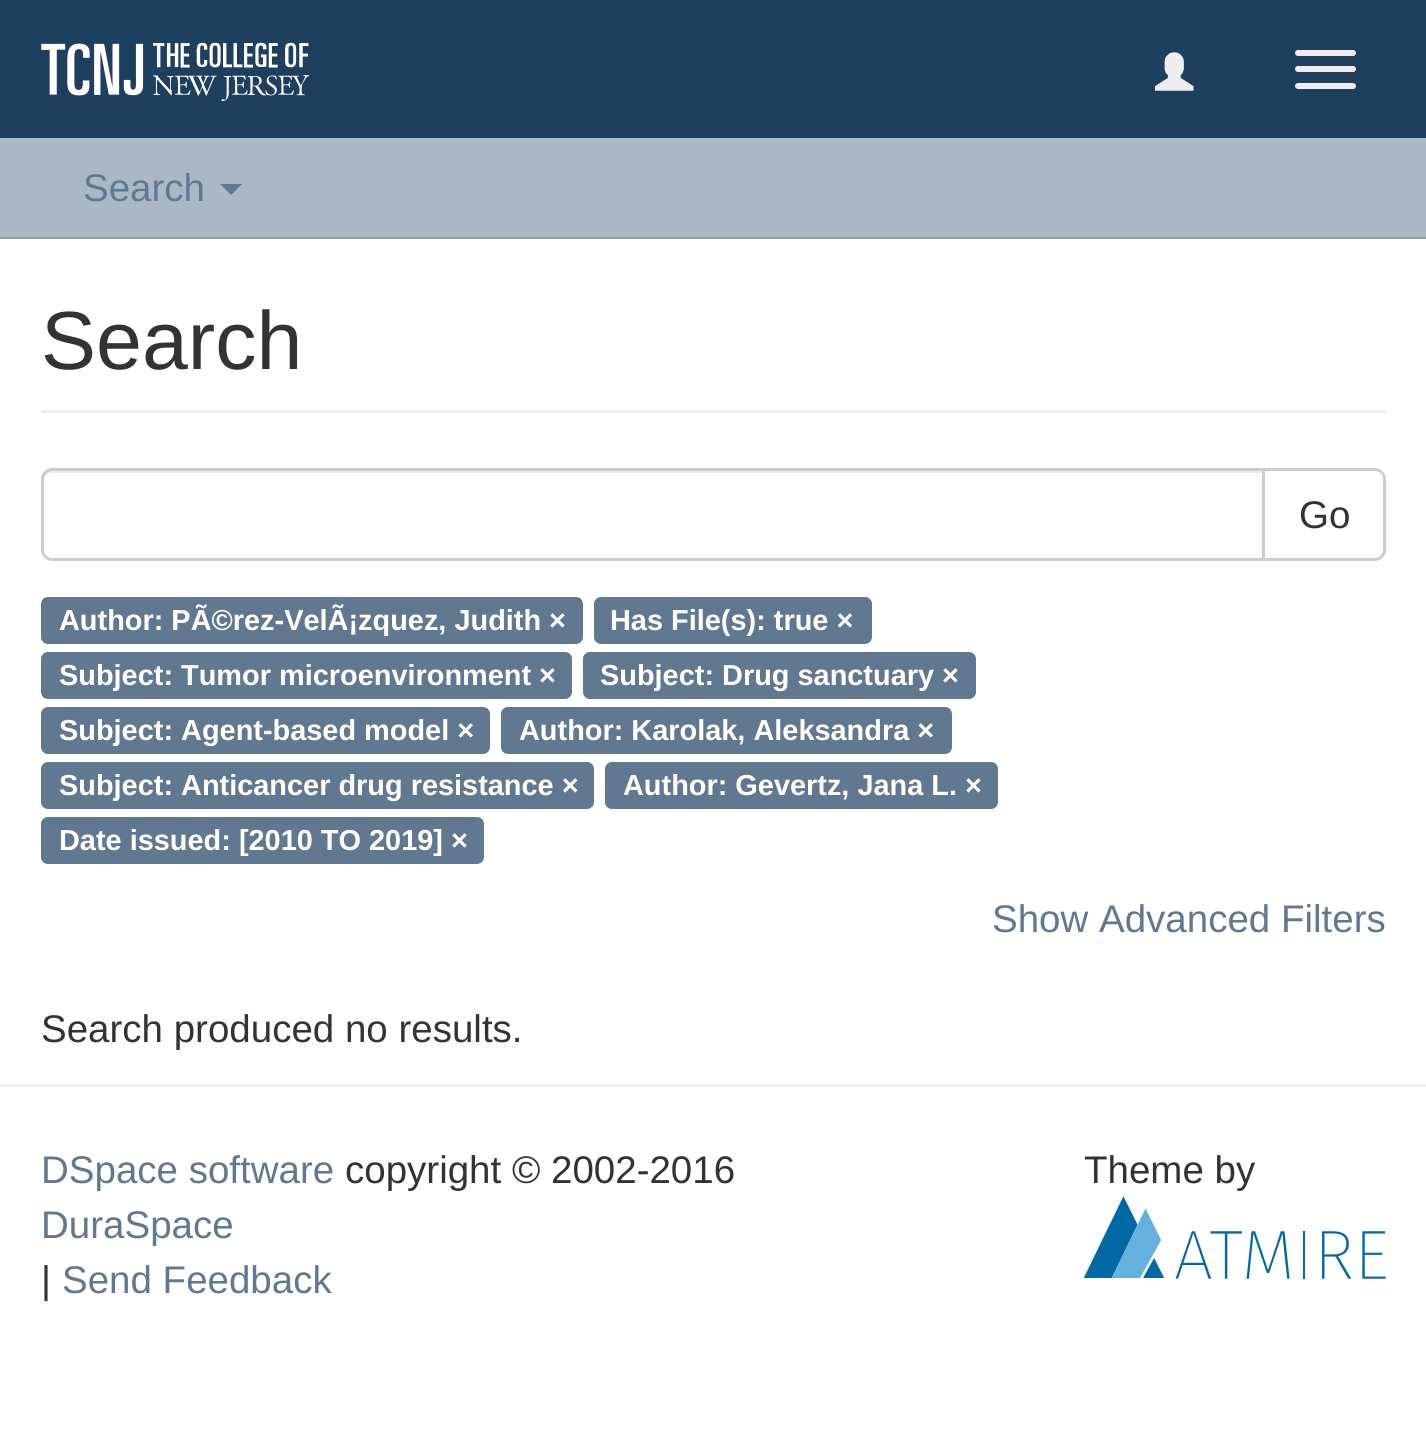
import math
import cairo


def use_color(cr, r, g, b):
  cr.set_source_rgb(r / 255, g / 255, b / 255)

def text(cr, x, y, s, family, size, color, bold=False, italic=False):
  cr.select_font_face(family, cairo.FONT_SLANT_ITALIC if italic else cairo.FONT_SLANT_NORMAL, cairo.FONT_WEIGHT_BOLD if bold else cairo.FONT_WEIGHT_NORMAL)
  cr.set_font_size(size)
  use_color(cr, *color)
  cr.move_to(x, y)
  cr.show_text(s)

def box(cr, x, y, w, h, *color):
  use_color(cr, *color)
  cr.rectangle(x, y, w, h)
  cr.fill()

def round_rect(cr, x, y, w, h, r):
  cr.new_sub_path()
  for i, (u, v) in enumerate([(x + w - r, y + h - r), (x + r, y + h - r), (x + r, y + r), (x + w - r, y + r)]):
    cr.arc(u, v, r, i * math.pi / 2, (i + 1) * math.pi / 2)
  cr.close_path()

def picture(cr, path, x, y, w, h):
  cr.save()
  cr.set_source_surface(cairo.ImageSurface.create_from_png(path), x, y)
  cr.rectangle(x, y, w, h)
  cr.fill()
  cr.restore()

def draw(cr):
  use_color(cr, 255, 255, 255)
  cr.paint()
  box(cr, 0, 0, 1426, 138, 31, 63, 94)
  picture(cr, "img_01.png", 41, 42, 269, 59)
  picture(cr, "img_02.png", 1155, 52, 39, 39)
  use_color(cr, 238, 238, 238)
  round_rect(cr, 1295, 50, 61, 6, 3)
  cr.fill()
  round_rect(cr, 1295, 66, 61, 6, 3)
  cr.fill()
  round_rect(cr, 1295, 83, 61, 6, 3)
  cr.fill()
  box(cr, 0, 138, 1426, 99, 170, 184, 198)
  box(cr, 0, 237, 1426, 2, 139, 158, 178)
  use_color(cr, 96, 120, 144)
  cr.new_path()
  cr.move_to(220, 184)
  cr.line_to(242, 184)
  cr.line_to(231, 195)
  cr.close_path()
  cr.fill()
  box(cr, 41, 410, 1345, 3, 238, 238, 238)
  cr.new_path()
  cr.move_to(1263.5, 469.5)
  cr.line_to(1375, 469.5)
  cr.curve_to(1380, 469.5, 1384.5, 474, 1384.5, 479)
  cr.line_to(1384.5, 550)
  cr.curve_to(1384.5, 555, 1380, 559.5, 1375, 559.5)
  cr.line_to(1263.5, 559.5)
  cr.close_path()
  use_color(cr, 204, 204, 204)
  cr.set_line_width(3)
  cr.stroke()
  use_color(cr, 255, 255, 255)
  cr.new_path()
  cr.move_to(52, 468)
  cr.line_to(1265, 468)
  cr.line_to(1265, 561)
  cr.line_to(52, 561)
  cr.curve_to(46, 561, 41, 556, 41, 550)
  cr.line_to(41, 479)
  cr.curve_to(41, 473, 46, 468, 52, 468)
  cr.close_path()
  cr.fill()
  use_color(cr, 236, 236, 236)
  cr.new_path()
  cr.move_to(52, 473)
  cr.line_to(1262, 473)
  cr.line_to(1262, 470)
  cr.line_to(52, 470)
  cr.curve_to(46, 470, 44, 476, 44, 481)
  cr.curve_to(44, 477, 48, 473, 52, 473)
  cr.close_path()
  cr.fill()
  cr.new_path()
  cr.move_to(52, 469.5)
  cr.line_to(1263.5, 469.5)
  cr.line_to(1263.5, 559.5)
  cr.line_to(52, 559.5)
  cr.curve_to(47, 559.5, 42.5, 555, 42.5, 550)
  cr.line_to(42.5, 479)
  cr.curve_to(42.5, 474, 47, 469.5, 52, 469.5)
  cr.close_path()
  use_color(cr, 204, 204, 204)
  cr.stroke()
  use_color(cr, 96, 120, 144)
  round_rect(cr, 41, 597, 542, 47, 7)
  cr.fill()
  round_rect(cr, 594, 597, 278, 47, 7)
  cr.fill()
  round_rect(cr, 41, 652, 531, 47, 7)
  cr.fill()
  round_rect(cr, 583, 652, 393, 47, 7)
  cr.fill()
  round_rect(cr, 41, 707, 449, 47, 7)
  cr.fill()
  round_rect(cr, 501, 707, 451, 47, 7)
  cr.fill()
  round_rect(cr, 41, 762, 553, 47, 7)
  cr.fill()
  round_rect(cr, 605, 762, 393, 47, 7)
  cr.fill()
  round_rect(cr, 41, 817, 443, 47, 7)
  cr.fill()
  box(cr, 0, 1084, 1426, 3, 238, 238, 238)
  picture(cr, "img_03.png", 1084, 1196, 302, 83)
  text(cr, 83, 201, "Search", "Liberation Sans", 38.5, (96, 120, 144))
  text(cr, 41, 369, "Search", "Liberation Sans", 82.5, (51, 51, 51))
  text(cr, 1299, 528, "Go", "Liberation Sans", 38.5, (51, 51, 51))
  text(cr, 59, 630, "Author: PÃ©rez-VelÃ¡zquez, Judith ×", "Liberation Sans", 28.9, (255, 255, 255), bold=True)
  text(cr, 610, 630, "Has File(s): true ×", "Liberation Sans", 28.9, (255, 255, 255), bold=True)
  text(cr, 59, 685, "Subject: Tumor microenvironment ×", "Liberation Sans", 28.9, (255, 255, 255), bold=True)
  text(cr, 600, 685, "Subject: Drug sanctuary ×", "Liberation Sans", 28.9, (255, 255, 255), bold=True)
  text(cr, 59, 740, "Subject: Agent-based model ×", "Liberation Sans", 28.9, (255, 255, 255), bold=True)
  text(cr, 519, 740, "Author: Karolak, Aleksandra ×", "Liberation Sans", 28.9, (255, 255, 255), bold=True)
  text(cr, 59, 795, "Subject: Anticancer drug resistance ×", "Liberation Sans", 28.9, (255, 255, 255), bold=True)
  text(cr, 623, 795, "Author: Gevertz, Jana L. ×", "Liberation Sans", 28.9, (255, 255, 255), bold=True)
  text(cr, 59, 850, "Date issued: [2010 TO 2019] ×", "Liberation Sans", 28.9, (255, 255, 255), bold=True)
  text(cr, 992, 932, "Show Advanced Filters", "Liberation Sans", 38.5, (96, 120, 144))
  text(cr, 41, 1042, "Search produced no results.", "Liberation Sans", 38.5, (51, 51, 51))
  text(cr, 41, 1183, "DSpace software", "Liberation Sans", 38.5, (96, 120, 144))
  text(cr, 345, 1183, "copyright © 2002-2016", "Liberation Sans", 38.5, (51, 51, 51))
  text(cr, 41, 1238, "DuraSpace", "Liberation Sans", 38.5, (96, 120, 144))
  text(cr, 41, 1293, "|", "Liberation Sans", 38.5, (51, 51, 51))
  text(cr, 62, 1293, "Send Feedback", "Liberation Sans", 38.5, (96, 120, 144))
  text(cr, 1084, 1183, "Theme by", "Liberation Sans", 38.5, (51, 51, 51))


surface = cairo.ImageSurface(cairo.FORMAT_RGB24, 1426, 1456)
cr = cairo.Context(surface)
options = cairo.FontOptions()
options.set_hint_metrics(cairo.HINT_METRICS_OFF)
options.set_hint_style(cairo.HINT_STYLE_NONE)
cr.set_font_options(options)
cr.set_miter_limit(4)
draw(cr)
surface.write_to_png("out.png")
